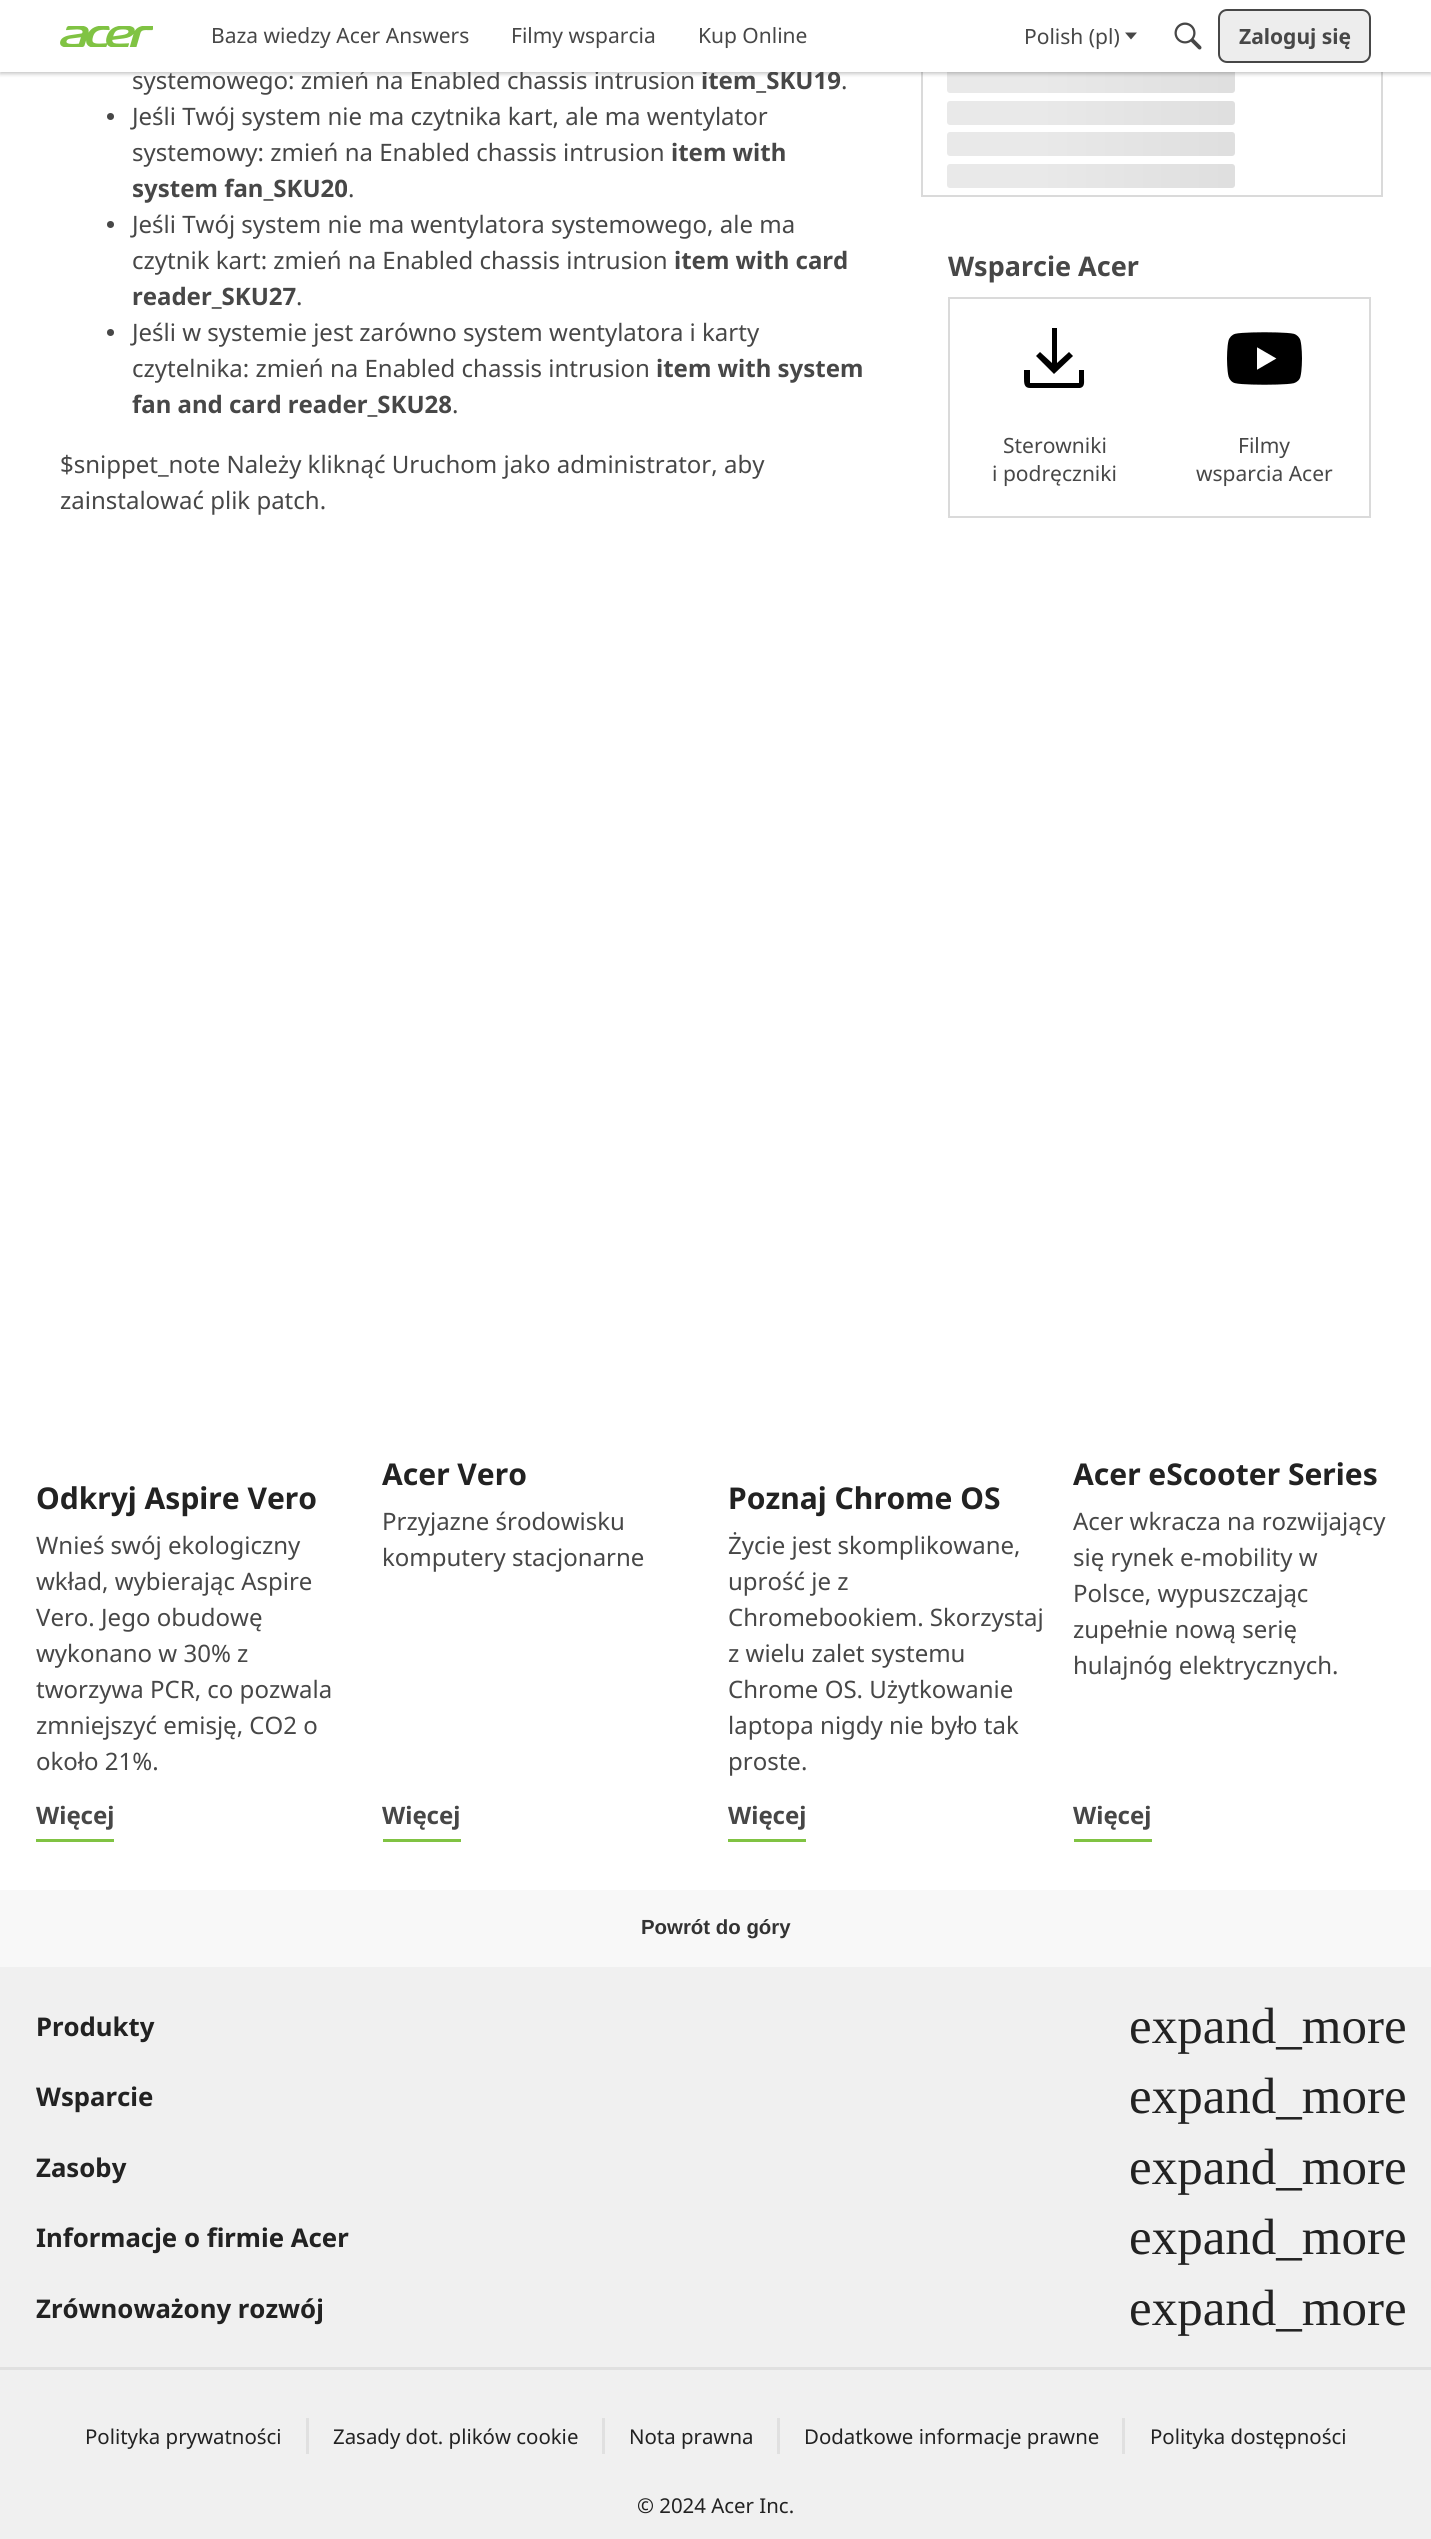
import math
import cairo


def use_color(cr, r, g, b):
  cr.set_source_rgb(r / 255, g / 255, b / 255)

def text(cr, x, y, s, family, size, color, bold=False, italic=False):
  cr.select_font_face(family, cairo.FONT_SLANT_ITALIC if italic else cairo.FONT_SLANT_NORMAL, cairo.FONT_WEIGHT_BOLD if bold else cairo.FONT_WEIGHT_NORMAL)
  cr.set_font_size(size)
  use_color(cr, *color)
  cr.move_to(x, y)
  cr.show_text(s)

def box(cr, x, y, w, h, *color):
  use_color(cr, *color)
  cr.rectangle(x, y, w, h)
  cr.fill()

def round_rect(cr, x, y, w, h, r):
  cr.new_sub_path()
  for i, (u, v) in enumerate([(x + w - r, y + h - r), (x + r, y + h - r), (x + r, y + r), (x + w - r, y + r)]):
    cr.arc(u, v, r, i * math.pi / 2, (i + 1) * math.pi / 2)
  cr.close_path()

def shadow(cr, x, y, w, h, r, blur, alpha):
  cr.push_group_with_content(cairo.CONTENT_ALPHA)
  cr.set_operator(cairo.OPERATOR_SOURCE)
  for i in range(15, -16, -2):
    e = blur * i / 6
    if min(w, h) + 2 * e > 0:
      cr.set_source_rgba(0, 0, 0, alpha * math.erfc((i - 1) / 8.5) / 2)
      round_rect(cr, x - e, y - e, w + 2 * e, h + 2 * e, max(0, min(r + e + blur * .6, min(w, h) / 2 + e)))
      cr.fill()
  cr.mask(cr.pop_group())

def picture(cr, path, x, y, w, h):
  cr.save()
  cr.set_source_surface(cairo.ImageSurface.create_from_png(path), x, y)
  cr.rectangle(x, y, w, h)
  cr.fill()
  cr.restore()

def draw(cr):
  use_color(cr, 255, 255, 255)
  cr.paint()
  cr.rectangle(922, 69, 460, 127)
  use_color(cr, 218, 218, 218)
  cr.stroke()
  gradient = cairo.LinearGradient(947, 81, 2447, 81)
  gradient.add_color_stop_rgba(0.06, 0.914, 0.914, 0.914, 1)
  gradient.add_color_stop_rgba(0.25, 0.855, 0.855, 0.855, 1)
  gradient.add_color_stop_rgba(0.34, 0.914, 0.914, 0.914, 1)
  cr.set_source(gradient)
  round_rect(cr, 947, 69, 288, 24, 3)
  cr.fill()
  use_color(cr, 0, 0, 0)
  shadow(cr, 0, 2, 1431, 72, 0, 2, 0.22)
  use_color(cr, 71, 71, 71)
  cr.arc(110.5, 116.5, 3.5, 0, 2 * math.pi)
  cr.fill()
  cr.arc(110.5, 224.5, 3.5, 0, 2 * math.pi)
  cr.fill()
  cr.arc(110.5, 332.5, 3.5, 0, 2 * math.pi)
  cr.fill()
  gradient = cairo.LinearGradient(947, 113, 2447, 112)
  gradient.add_color_stop_rgba(0.06, 0.914, 0.914, 0.914, 1)
  gradient.add_color_stop_rgba(0.25, 0.855, 0.855, 0.855, 1)
  gradient.add_color_stop_rgba(0.34, 0.914, 0.914, 0.914, 1)
  cr.set_source(gradient)
  round_rect(cr, 947, 101, 288, 24, 3)
  cr.fill()
  gradient = cairo.LinearGradient(947, 144, 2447, 144)
  gradient.add_color_stop_rgba(0.06, 0.914, 0.914, 0.914, 1)
  gradient.add_color_stop_rgba(0.25, 0.855, 0.855, 0.855, 1)
  gradient.add_color_stop_rgba(0.34, 0.914, 0.914, 0.914, 1)
  cr.set_source(gradient)
  round_rect(cr, 947, 132, 288, 24, 3)
  cr.fill()
  gradient = cairo.LinearGradient(947, 176, 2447, 175)
  gradient.add_color_stop_rgba(0.06, 0.914, 0.914, 0.914, 1)
  gradient.add_color_stop_rgba(0.25, 0.855, 0.855, 0.855, 1)
  gradient.add_color_stop_rgba(0.34, 0.914, 0.914, 0.914, 1)
  cr.set_source(gradient)
  round_rect(cr, 947, 164, 288, 24, 3)
  cr.fill()
  cr.rectangle(949, 298, 421, 219)
  use_color(cr, 218, 218, 218)
  cr.stroke()
  use_color(cr, 0, 0, 0)
  cr.new_path()
  cr.move_to(1030, 388)
  cr.curve_to(1024, 388, 1024, 383, 1024, 378)
  cr.line_to(1024, 370)
  cr.line_to(1030, 370)
  cr.line_to(1030, 383)
  cr.line_to(1079, 383)
  cr.line_to(1079, 370)
  cr.line_to(1084, 370)
  cr.line_to(1084, 378)
  cr.curve_to(1084, 382, 1085, 387, 1080, 388)
  cr.close_path()
  cr.move_to(1054, 374)
  cr.line_to(1036, 356)
  cr.line_to(1040, 352)
  cr.line_to(1052, 363)
  cr.line_to(1052, 328)
  cr.line_to(1057, 328)
  cr.line_to(1057, 363)
  cr.line_to(1069, 352)
  cr.line_to(1073, 356)
  cr.close_path()
  cr.fill()
  picture(cr, "img_03.png", 1227, 332, 75, 53)
  box(cr, 36, 1839, 78, 3, 128, 195, 67)
  box(cr, 383, 1839, 78, 3, 128, 195, 67)
  box(cr, 728, 1839, 78, 3, 128, 195, 67)
  box(cr, 1074, 1839, 78, 3, 128, 195, 67)
  box(cr, 0, 1967, 1431, 572, 240, 240, 240)
  box(cr, 0, 1890, 1431, 77, 248, 248, 248)
  box(cr, 0, 2367, 1431, 3, 224, 224, 224)
  box(cr, 306, 2418, 3, 36, 224, 224, 224)
  box(cr, 602, 2418, 3, 36, 224, 224, 224)
  box(cr, 777, 2418, 3, 36, 224, 224, 224)
  box(cr, 1122, 2418, 3, 36, 224, 224, 224)
  text(cr, 132, 89, "systemowego: zmień na Enabled chassis intrusion", "Noto Sans", 24, (71, 71, 71))
  text(cr, 701, 89, "item_SKU19", "Noto Sans", 24, (71, 71, 71), bold=True)
  box(cr, 0, 0, 1431, 72, 255, 255, 255)
  text(cr, 211, 43, "Baza wiedzy Acer Answers", "Noto Sans", 21, (71, 71, 71))
  use_color(cr, 237, 237, 237)
  round_rect(cr, 1219, 10, 151, 52, 8)
  cr.fill_preserve()
  use_color(cr, 71, 71, 71)
  cr.stroke()
  text(cr, 1239, 44, "Zaloguj się", "Noto Sans", 21, (71, 71, 71), bold=True)
  picture(cr, "img_02.png", 1174, 22, 28, 28)
  cr.new_path()
  cr.move_to(1125, 32.5)
  cr.line_to(1137, 32.5)
  cr.line_to(1131, 39.5)
  cr.close_path()
  cr.fill()
  text(cr, 1024, 44, "Polish (pl)", "Noto Sans", 21, (71, 71, 71))
  text(cr, 698, 43, "Kup Online", "Noto Sans", 21, (71, 71, 71))
  text(cr, 511, 43, "Filmy wsparcia", "Noto Sans", 21, (71, 71, 71))
  picture(cr, "img_01.png", 60, 26, 93, 21)
  text(cr, 841, 89, ".", "Noto Sans", 24, (71, 71, 71))
  text(cr, 132, 125, "Jeśli Twój system nie ma czytnika kart, ale ma wentylator", "Noto Sans", 24, (71, 71, 71))
  text(cr, 132, 161, "systemowy: zmień na Enabled chassis intrusion", "Noto Sans", 24, (71, 71, 71))
  text(cr, 671, 161, "item with", "Noto Sans", 24, (71, 71, 71), bold=True)
  text(cr, 132, 197, "system fan_SKU20", "Noto Sans", 24, (71, 71, 71), bold=True)
  text(cr, 348, 197, ".", "Noto Sans", 24, (71, 71, 71))
  text(cr, 132, 233, "Jeśli Twój system nie ma wentylatora systemowego, ale ma", "Noto Sans", 24, (71, 71, 71))
  text(cr, 132, 269, "czytnik kart: zmień na Enabled chassis intrusion", "Noto Sans", 24, (71, 71, 71))
  text(cr, 674, 269, "item with card", "Noto Sans", 24, (71, 71, 71), bold=True)
  text(cr, 132, 305, "reader_SKU27", "Noto Sans", 24, (71, 71, 71), bold=True)
  text(cr, 296, 305, ".", "Noto Sans", 24, (71, 71, 71))
  text(cr, 132, 341, "Jeśli w systemie jest zarówno system wentylatora i karty", "Noto Sans", 24, (71, 71, 71))
  text(cr, 132, 377, "czytelnika: zmień na Enabled chassis intrusion", "Noto Sans", 24, (71, 71, 71))
  text(cr, 656, 377, "item with system", "Noto Sans", 24, (71, 71, 71), bold=True)
  text(cr, 132, 413, "fan and card reader_SKU28", "Noto Sans", 24, (71, 71, 71), bold=True)
  text(cr, 452, 413, ".", "Noto Sans", 24, (71, 71, 71))
  text(cr, 60, 473, "$snippet_note Należy kliknąć Uruchom jako administrator, aby", "Noto Sans", 24, (71, 71, 71))
  text(cr, 60, 509, "zainstalować plik patch.", "Noto Sans", 24, (71, 71, 71))
  text(cr, 948, 276, "Wsparcie Acer", "Noto Sans", 27, (71, 71, 71), bold=True)
  text(cr, 1003, 453, "Sterowniki", "Noto Sans", 21, (71, 71, 71))
  text(cr, 992, 481, "i podręczniki", "Noto Sans", 21, (71, 71, 71))
  text(cr, 1238, 453, "Filmy", "Noto Sans", 21, (71, 71, 71))
  text(cr, 1196, 481, "wsparcia Acer", "Noto Sans", 21, (71, 71, 71))
  text(cr, 36, 1509, "Odkryj Aspire Vero", "Noto Sans", 30, (34, 34, 34), bold=True)
  text(cr, 36, 1554, "Wnieś swój ekologiczny", "Noto Sans", 24, (71, 71, 71))
  text(cr, 36, 1590, "wkład, wybierając Aspire", "Noto Sans", 24, (71, 71, 71))
  text(cr, 36, 1626, "Vero. Jego obudowę", "Noto Sans", 24, (71, 71, 71))
  text(cr, 36, 1662, "wykonano w 30% z", "Noto Sans", 24, (71, 71, 71))
  text(cr, 36, 1698, "tworzywa PCR, co pozwala", "Noto Sans", 24, (71, 71, 71))
  text(cr, 36, 1734, "zmniejszyć emisję, CO2 o", "Noto Sans", 24, (71, 71, 71))
  text(cr, 36, 1770, "około 21%.", "Noto Sans", 24, (71, 71, 71))
  text(cr, 36, 1824, "Więcej", "Noto Sans", 24, (71, 71, 71), bold=True)
  text(cr, 382, 1485, "Acer Vero", "Noto Sans", 30, (34, 34, 34), bold=True)
  text(cr, 382, 1530, "Przyjazne środowisku", "Noto Sans", 24, (71, 71, 71))
  text(cr, 382, 1566, "komputery stacjonarne", "Noto Sans", 24, (71, 71, 71))
  text(cr, 382, 1824, "Więcej", "Noto Sans", 24, (71, 71, 71), bold=True)
  text(cr, 728, 1509, "Poznaj Chrome OS", "Noto Sans", 30, (34, 34, 34), bold=True)
  text(cr, 728, 1554, "Życie jest skomplikowane,", "Noto Sans", 24, (71, 71, 71))
  text(cr, 728, 1590, "uprość je z", "Noto Sans", 24, (71, 71, 71))
  text(cr, 728, 1626, "Chromebookiem. Skorzystaj", "Noto Sans", 24, (71, 71, 71))
  text(cr, 728, 1662, "z wielu zalet systemu", "Noto Sans", 24, (71, 71, 71))
  text(cr, 728, 1698, "Chrome OS. Użytkowanie", "Noto Sans", 24, (71, 71, 71))
  text(cr, 728, 1734, "laptopa nigdy nie było tak", "Noto Sans", 24, (71, 71, 71))
  text(cr, 728, 1770, "proste.", "Noto Sans", 24, (71, 71, 71))
  text(cr, 728, 1824, "Więcej", "Noto Sans", 24, (71, 71, 71), bold=True)
  text(cr, 1073, 1485, "Acer eScooter Series", "Noto Sans", 30, (34, 34, 34), bold=True)
  text(cr, 1073, 1530, "Acer wkracza na rozwijający", "Noto Sans", 24, (71, 71, 71))
  text(cr, 1073, 1566, "się rynek e-mobility w", "Noto Sans", 24, (71, 71, 71))
  text(cr, 1073, 1602, "Polsce, wypuszczając", "Noto Sans", 24, (71, 71, 71))
  text(cr, 1073, 1638, "zupełnie nową serię", "Noto Sans", 24, (71, 71, 71))
  text(cr, 1073, 1674, "hulajnóg elektrycznych.", "Noto Sans", 24, (71, 71, 71))
  text(cr, 1073, 1824, "Więcej", "Noto Sans", 24, (71, 71, 71), bold=True)
  text(cr, 641, 1934, "Powrót do góry", "Liberation Sans", 20.4, (51, 51, 51), bold=True)
  text(cr, 36, 2036, "Produkty", "Noto Sans", 25.75, (34, 34, 34), bold=True)
  text(cr, 1129, 2043, "expand_more", "Liberation Serif", 51, (34, 34, 34))
  text(cr, 36, 2106, "Wsparcie", "Noto Sans", 25.75, (34, 34, 34), bold=True)
  text(cr, 1129, 2113, "expand_more", "Liberation Serif", 51, (34, 34, 34))
  text(cr, 36, 2177, "Zasoby", "Noto Sans", 25.75, (34, 34, 34), bold=True)
  text(cr, 1129, 2184, "expand_more", "Liberation Serif", 51, (34, 34, 34))
  text(cr, 36, 2247, "Informacje o firmie Acer", "Noto Sans", 25.75, (34, 34, 34), bold=True)
  text(cr, 1129, 2254, "expand_more", "Liberation Serif", 51, (34, 34, 34))
  text(cr, 36, 2318, "Zrównoważony rozwój", "Noto Sans", 25.75, (34, 34, 34), bold=True)
  text(cr, 1129, 2325, "expand_more", "Liberation Serif", 51, (34, 34, 34))
  text(cr, 85, 2444, "Polityka prywatności", "Noto Sans", 20.4, (34, 34, 34))
  text(cr, 333, 2444, "Zasady dot. plików cookie", "Noto Sans", 20.4, (34, 34, 34))
  text(cr, 629, 2444, "Nota prawna", "Noto Sans", 20.4, (34, 34, 34))
  text(cr, 804, 2444, "Dodatkowe informacje prawne", "Noto Sans", 20.4, (34, 34, 34))
  text(cr, 1150, 2444, "Polityka dostępności", "Noto Sans", 20.4, (34, 34, 34))
  text(cr, 637, 2513, "© 2024 Acer Inc.", "Noto Sans", 20.4, (34, 34, 34))


surface = cairo.ImageSurface(cairo.FORMAT_RGB24, 1431, 2539)
cr = cairo.Context(surface)
options = cairo.FontOptions()
options.set_hint_metrics(cairo.HINT_METRICS_OFF)
options.set_hint_style(cairo.HINT_STYLE_NONE)
cr.set_font_options(options)
cr.set_miter_limit(4)
draw(cr)
surface.write_to_png("out.png")
